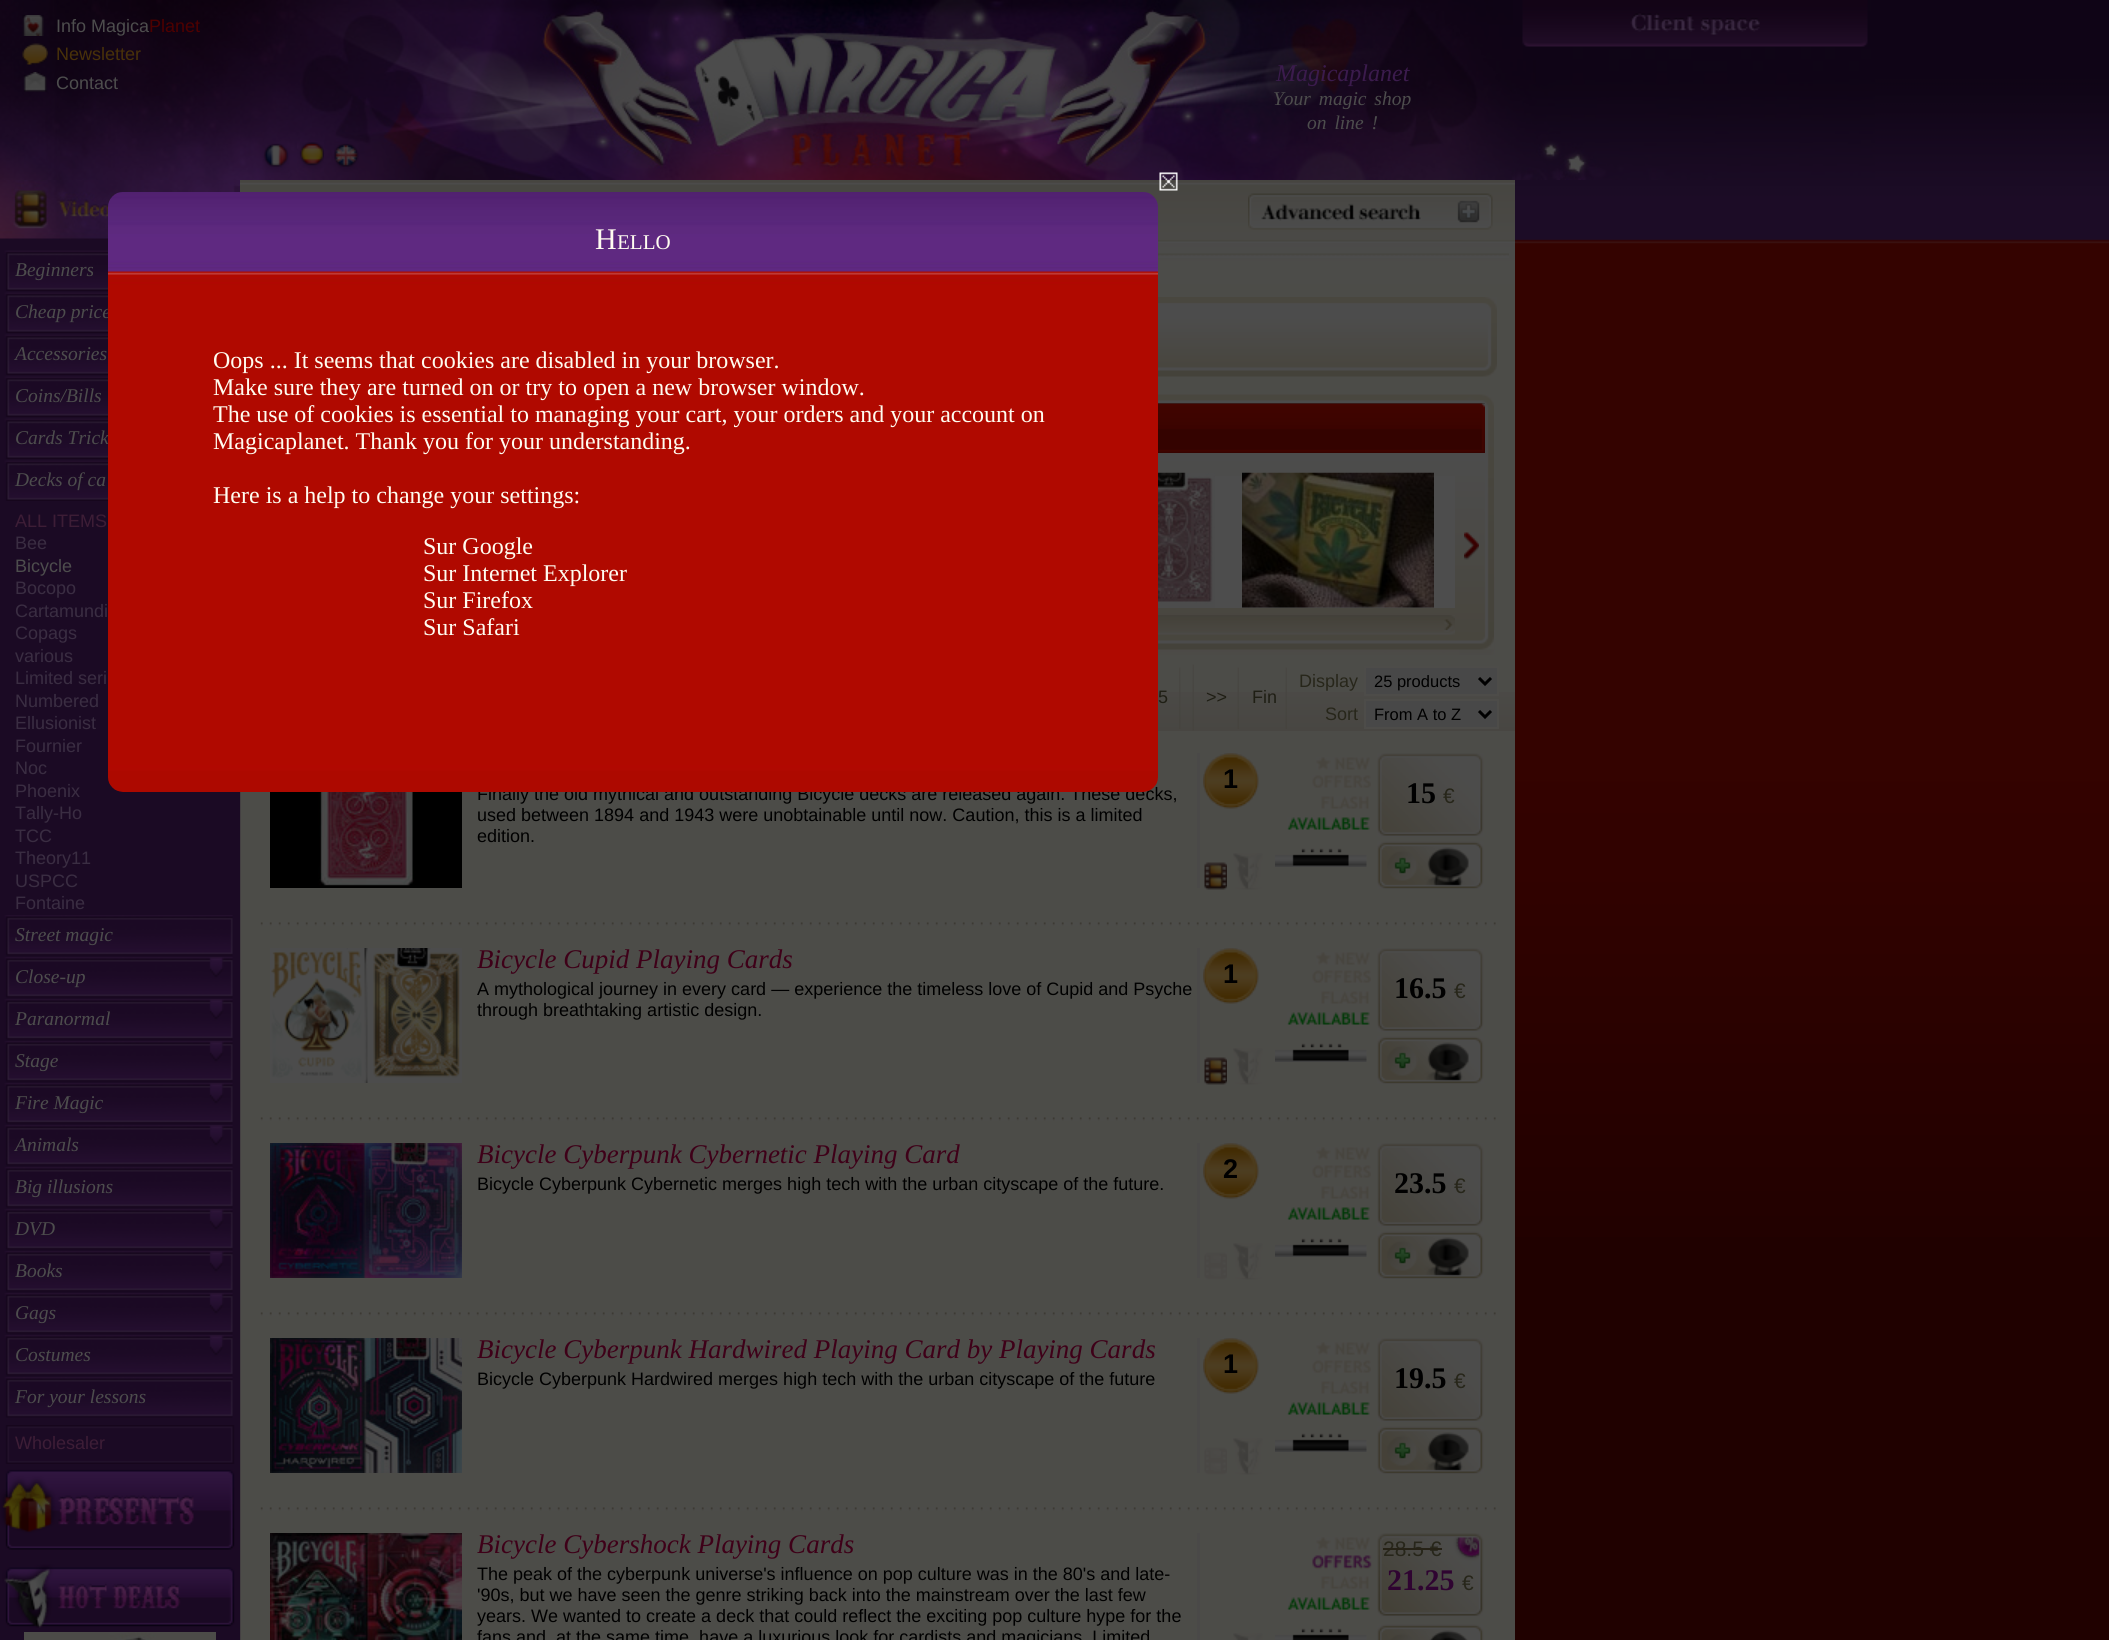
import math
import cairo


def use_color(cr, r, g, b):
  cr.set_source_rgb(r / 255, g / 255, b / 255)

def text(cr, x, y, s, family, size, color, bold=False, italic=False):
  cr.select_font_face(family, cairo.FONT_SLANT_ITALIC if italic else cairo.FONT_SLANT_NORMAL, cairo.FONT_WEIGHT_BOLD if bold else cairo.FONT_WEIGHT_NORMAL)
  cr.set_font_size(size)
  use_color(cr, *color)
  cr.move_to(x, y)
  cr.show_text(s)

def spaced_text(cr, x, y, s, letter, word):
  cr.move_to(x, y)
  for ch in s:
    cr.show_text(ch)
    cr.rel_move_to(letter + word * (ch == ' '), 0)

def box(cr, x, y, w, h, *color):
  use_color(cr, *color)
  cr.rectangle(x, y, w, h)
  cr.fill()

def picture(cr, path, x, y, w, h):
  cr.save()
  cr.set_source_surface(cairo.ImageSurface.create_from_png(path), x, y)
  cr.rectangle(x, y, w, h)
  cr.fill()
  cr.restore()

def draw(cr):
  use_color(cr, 32, 1, 0)
  cr.paint()
  picture(cr, "img_01.png", 1515, 0, 594, 1237)
  picture(cr, "img_02.png", 0, 0, 1875, 180)
  picture(cr, "img_03.png", 22, 15, 22, 21)
  picture(cr, "img_04.png", 22, 43, 26, 22)
  picture(cr, "img_05.png", 23, 72, 24, 20)
  picture(cr, "img_06.png", 1522, 0, 346, 47)
  picture(cr, "img_07.png", 262, 143, 28, 30)
  picture(cr, "img_08.png", 297, 142, 27, 30)
  picture(cr, "img_09.png", 331, 143, 28, 29)
  picture(cr, "img_10.png", 240, 283, 1275, 1357)
  box(cr, 0, 240, 240, 1400, 27, 10, 36)
  picture(cr, "img_11.png", 0, 180, 240, 60)
  picture(cr, "img_12.png", 4, 250, 104, 41)
  picture(cr, "img_12.png", 4, 292, 104, 41)
  picture(cr, "img_12.png", 4, 334, 104, 41)
  picture(cr, "img_12.png", 4, 376, 104, 41)
  picture(cr, "img_12.png", 4, 418, 104, 41)
  picture(cr, "img_12.png", 4, 460, 104, 41)
  picture(cr, "img_13.png", 4, 915, 229, 41)
  picture(cr, "img_14.png", 4, 957, 229, 41)
  picture(cr, "img_14.png", 4, 999, 229, 41)
  picture(cr, "img_14.png", 4, 1041, 229, 41)
  picture(cr, "img_14.png", 4, 1083, 229, 41)
  picture(cr, "img_14.png", 4, 1125, 229, 41)
  picture(cr, "img_13.png", 4, 1167, 229, 41)
  picture(cr, "img_14.png", 4, 1209, 229, 41)
  picture(cr, "img_14.png", 4, 1251, 229, 41)
  picture(cr, "img_14.png", 4, 1293, 229, 41)
  picture(cr, "img_14.png", 4, 1335, 229, 41)
  picture(cr, "img_13.png", 4, 1377, 229, 41)
  picture(cr, "img_15.png", 5, 1425, 230, 39)
  picture(cr, "img_16.png", 0, 1469, 235, 81)
  picture(cr, "img_17.png", 2, 1564, 233, 64)
  picture(cr, "img_18.png", 24, 1632, 192, 8)
  picture(cr, "img_19.png", 240, 180, 1275, 63)
  picture(cr, "img_20.png", 1248, 193, 245, 37)
  picture(cr, "img_22.png", 1158, 243, 357, 41)
  picture(cr, "img_21.png", 1158, 253, 351, 5)
  picture(cr, "img_23.png", 1158, 297, 339, 80)
  picture(cr, "img_24.png", 1158, 530, 337, 125)
  picture(cr, "img_25.png", 1158, 394, 336, 256)
  picture(cr, "img_26.png", 1158, 403, 327, 1)
  picture(cr, "img_27.png", 1158, 403, 327, 50)
  box(cr, 1158, 476, 297, 132, 77, 77, 77)
  picture(cr, "img_28.png", 1158, 472, 57, 136)
  picture(cr, "img_29.png", 1242, 472, 192, 136)
  picture(cr, "img_30.png", 1158, 615, 297, 20)
  picture(cr, "img_31.png", 1464, 532, 15, 28)
  gradient = cairo.LinearGradient(885, 664, 885, 731)
  gradient.add_color_stop_rgba(0, 0.302, 0.298, 0.286, 1)
  gradient.add_color_stop_rgba(1, 0.282, 0.275, 0.259, 1)
  cr.set_source(gradient)
  cr.rectangle(1158, 692, 357, 39)
  cr.fill()
  picture(cr, "img_32.png", 1192, 664, 2, 67)
  picture(cr, "img_33.png", 1179, 667, 2, 62)
  picture(cr, "img_34.png", 1237, 667, 2, 62)
  picture(cr, "img_35.png", 1285, 667, 2, 62)
  use_color(cr, 72, 72, 72)
  cr.rectangle(1365, 667, 133, 28)
  cr.fill_preserve()
  use_color(cr, 77, 76, 73)
  cr.stroke()
  cr.new_path()
  cr.move_to(1479, 678)
  cr.line_to(1485, 684)
  cr.line_to(1491, 678)
  use_color(cr, 0, 0, 0)
  cr.set_line_width(3)
  cr.stroke()
  use_color(cr, 72, 72, 72)
  cr.rectangle(1365, 700, 133, 28)
  cr.fill_preserve()
  use_color(cr, 77, 76, 73)
  cr.set_line_width(2)
  cr.stroke()
  cr.new_path()
  cr.move_to(1479, 711)
  cr.line_to(1485, 717)
  cr.line_to(1491, 711)
  use_color(cr, 0, 0, 0)
  cr.set_line_width(3)
  cr.stroke()
  picture(cr, "img_36.png", 260, 922, 1236, 4)
  picture(cr, "img_37.png", 270, 792, 192, 96)
  box(cr, 1197, 753, 3, 135, 74, 73, 72)
  picture(cr, "img_38.png", 1316, 757, 54, 13)
  picture(cr, "img_39.png", 1203, 753, 56, 56)
  picture(cr, "img_40.png", 1312, 775, 59, 13)
  picture(cr, "img_41.png", 1321, 796, 48, 13)
  picture(cr, "img_42.png", 1287, 817, 83, 13)
  picture(cr, "img_43.png", 1204, 862, 23, 28)
  picture(cr, "img_44.png", 1233, 853, 30, 37)
  picture(cr, "img_45.png", 1275, 848, 92, 19)
  picture(cr, "img_46.png", 1377, 753, 107, 84)
  picture(cr, "img_47.png", 1377, 841, 107, 48)
  picture(cr, "img_36.png", 260, 1117, 1236, 4)
  picture(cr, "img_48.png", 270, 948, 192, 135)
  box(cr, 1197, 948, 3, 135, 74, 73, 72)
  picture(cr, "img_38.png", 1316, 952, 54, 13)
  picture(cr, "img_39.png", 1203, 948, 56, 56)
  picture(cr, "img_40.png", 1312, 970, 59, 13)
  picture(cr, "img_41.png", 1321, 991, 48, 13)
  picture(cr, "img_42.png", 1287, 1012, 83, 13)
  picture(cr, "img_43.png", 1204, 1057, 23, 28)
  picture(cr, "img_44.png", 1233, 1048, 30, 37)
  picture(cr, "img_45.png", 1275, 1043, 92, 19)
  picture(cr, "img_46.png", 1377, 948, 107, 84)
  picture(cr, "img_47.png", 1377, 1036, 107, 48)
  picture(cr, "img_36.png", 260, 1312, 1236, 4)
  picture(cr, "img_49.png", 270, 1143, 192, 135)
  box(cr, 1197, 1143, 3, 135, 74, 73, 72)
  picture(cr, "img_38.png", 1316, 1147, 54, 13)
  picture(cr, "img_39.png", 1203, 1143, 56, 56)
  picture(cr, "img_40.png", 1312, 1165, 59, 13)
  picture(cr, "img_41.png", 1321, 1186, 48, 13)
  picture(cr, "img_42.png", 1287, 1207, 83, 13)
  picture(cr, "img_50.png", 1204, 1252, 23, 28)
  picture(cr, "img_44.png", 1233, 1243, 30, 37)
  picture(cr, "img_45.png", 1275, 1238, 92, 19)
  picture(cr, "img_46.png", 1377, 1143, 107, 84)
  picture(cr, "img_47.png", 1377, 1231, 107, 48)
  picture(cr, "img_36.png", 260, 1507, 1236, 4)
  picture(cr, "img_51.png", 270, 1338, 192, 135)
  box(cr, 1197, 1338, 3, 135, 74, 73, 72)
  picture(cr, "img_38.png", 1316, 1342, 54, 13)
  picture(cr, "img_39.png", 1203, 1338, 56, 56)
  picture(cr, "img_40.png", 1312, 1360, 59, 13)
  picture(cr, "img_41.png", 1321, 1381, 48, 13)
  picture(cr, "img_42.png", 1287, 1402, 83, 13)
  picture(cr, "img_50.png", 1204, 1447, 23, 28)
  picture(cr, "img_44.png", 1233, 1438, 30, 37)
  picture(cr, "img_45.png", 1275, 1433, 92, 19)
  picture(cr, "img_46.png", 1377, 1338, 107, 84)
  picture(cr, "img_47.png", 1377, 1426, 107, 48)
  picture(cr, "img_52.png", 270, 1533, 192, 107)
  box(cr, 1197, 1533, 3, 107, 74, 73, 72)
  picture(cr, "img_38.png", 1316, 1537, 54, 13)
  picture(cr, "img_53.png", 1312, 1555, 60, 15)
  picture(cr, "img_41.png", 1321, 1576, 48, 13)
  picture(cr, "img_42.png", 1287, 1597, 83, 13)
  picture(cr, "img_54.png", 1233, 1633, 30, 7)
  picture(cr, "img_55.png", 1275, 1628, 92, 12)
  picture(cr, "img_56.png", 1377, 1533, 107, 84)
  picture(cr, "img_57.png", 1377, 1624, 107, 16)
  picture(cr, "img_58.png", 1159, 172, 19, 19)
  text(cr, 56, 32, "Info Magica", "Liberation Sans", 18, (77, 77, 77))
  text(cr, 149, 32, "Planet", "Liberation Sans", 18, (77, 0, 0))
  text(cr, 56, 60, "Newsletter", "Liberation Sans", 18, (72, 49, 9))
  text(cr, 56, 89, "Contact", "Liberation Sans", 18, (77, 77, 77))
  text(cr, 1276, 81, "Magicaplanet", "Liberation Serif", 24, (59, 27, 77), italic=True)
  cr.set_font_size(19.5)
  use_color(cr, 77, 77, 77)
  spaced_text(cr, 1273, 105, "Your magic shop", 0, 3)
  spaced_text(cr, 1307, 129, "on line !", 0, 3)
  text(cr, 15, 276, "Beginners", "Liberation Serif", 19.5, (77, 77, 77), italic=True)
  text(cr, 15, 318, "Cheap price", "Liberation Serif", 19.5, (77, 77, 77), italic=True)
  text(cr, 15, 360, "Accessories", "Liberation Serif", 19.5, (77, 77, 77), italic=True)
  text(cr, 15, 402, "Coins/Bills", "Liberation Serif", 19.5, (77, 77, 77), italic=True)
  text(cr, 15, 444, "Cards Trick", "Liberation Serif", 19.5, (77, 77, 77), italic=True)
  text(cr, 15, 486, "Decks of ca", "Liberation Serif", 19.5, (77, 77, 77), italic=True)
  text(cr, 15, 527, "ALL ITEMS", "Liberation Sans", 18, (61, 29, 54))
  text(cr, 15, 549, "Bee", "Liberation Sans", 18, (58, 45, 66))
  text(cr, 15, 572, "Bicycle", "Liberation Sans", 18, (77, 77, 77))
  text(cr, 15, 594, "Bocopo", "Liberation Sans", 18, (58, 45, 66))
  text(cr, 15, 617, "Cartamundi", "Liberation Sans", 18, (58, 45, 66))
  text(cr, 15, 639, "Copags", "Liberation Sans", 18, (58, 45, 66))
  text(cr, 15, 662, "various", "Liberation Sans", 18, (58, 45, 66))
  text(cr, 15, 684, "Limited seri", "Liberation Sans", 18, (58, 45, 66))
  text(cr, 15, 707, "Numbered", "Liberation Sans", 18, (58, 45, 66))
  text(cr, 15, 729, "Ellusionist", "Liberation Sans", 18, (58, 45, 66))
  text(cr, 15, 752, "Fournier", "Liberation Sans", 18, (58, 45, 66))
  text(cr, 15, 774, "Noc", "Liberation Sans", 18, (58, 45, 66))
  text(cr, 15, 797, "Phoenix", "Liberation Sans", 18, (58, 45, 66))
  text(cr, 15, 819, "Tally-Ho", "Liberation Sans", 18, (58, 45, 66))
  text(cr, 15, 842, "TCC", "Liberation Sans", 18, (58, 45, 66))
  text(cr, 15, 864, "Theory11", "Liberation Sans", 18, (58, 45, 66))
  text(cr, 15, 887, "USPCC", "Liberation Sans", 18, (58, 45, 66))
  text(cr, 15, 909, "Fontaine", "Liberation Sans", 18, (58, 45, 66))
  text(cr, 15, 941, "Street magic", "Liberation Serif", 19.5, (77, 77, 77), italic=True)
  text(cr, 15, 983, "Close-up", "Liberation Serif", 19.5, (77, 77, 77), italic=True)
  text(cr, 15, 1025, "Paranormal", "Liberation Serif", 19.5, (77, 77, 77), italic=True)
  text(cr, 15, 1067, "Stage", "Liberation Serif", 19.5, (77, 77, 77), italic=True)
  text(cr, 15, 1109, "Fire Magic", "Liberation Serif", 19.5, (77, 77, 77), italic=True)
  text(cr, 15, 1151, "Animals", "Liberation Serif", 19.5, (77, 77, 77), italic=True)
  text(cr, 15, 1193, "Big illusions", "Liberation Serif", 19.5, (77, 77, 77), italic=True)
  text(cr, 15, 1235, "DVD", "Liberation Serif", 19.5, (77, 77, 77), italic=True)
  text(cr, 15, 1277, "Books", "Liberation Serif", 19.5, (77, 77, 77), italic=True)
  text(cr, 15, 1319, "Gags", "Liberation Serif", 19.5, (77, 77, 77), italic=True)
  text(cr, 15, 1361, "Costumes", "Liberation Serif", 19.5, (77, 77, 77), italic=True)
  text(cr, 15, 1403, "For your lessons", "Liberation Serif", 19.5, (77, 77, 77), italic=True)
  text(cr, 15, 1449, "Wholesaler", "Liberation Sans", 18, (61, 29, 54))
  text(cr, 1158, 703, "5", "Liberation Sans", 18, (31, 30, 20))
  text(cr, 1206, 703, ">>", "Liberation Sans", 18, (31, 30, 20))
  text(cr, 1252, 703, "Fin", "Liberation Sans", 18, (31, 30, 20))
  text(cr, 1299, 687, "Display", "Liberation Sans", 18, (39, 38, 26))
  text(cr, 1374, 687, "25 products", "Liberation Sans", 16.5, (0, 0, 0))
  text(cr, 1325, 720, "Sort", "Liberation Sans", 18, (39, 38, 26))
  text(cr, 1374, 720, "From A to Z", "Liberation Sans", 16.5, (0, 0, 0))
  text(cr, 477, 800, "Finally the old mythical and outstanding Bicycle decks are released again. These decks,", "Liberation Sans", 18, (0, 0, 0))
  text(cr, 477, 821, "used between 1894 and 1943 were unobtainable until now. Caution, this is a limited", "Liberation Sans", 18, (0, 0, 0))
  text(cr, 477, 842, "edition.", "Liberation Sans", 18, (0, 0, 0))
  text(cr, 1223, 788, "1", "Liberation Sans", 27, (0, 0, 0), bold=True)
  text(cr, 1406, 803, "15", "Liberation Serif", 30, (0, 0, 0), bold=True)
  text(cr, 1443, 803, "€", "Liberation Sans", 21, (39, 38, 26))
  text(cr, 477, 968, "Bicycle Cupid Playing Cards", "Liberation Serif", 27, (62, 0, 24), italic=True)
  text(cr, 477, 995, "A mythological journey in every card — experience the timeless love of Cupid and Psyche", "Liberation Sans", 18, (0, 0, 0))
  text(cr, 477, 1016, "through breathtaking artistic design.", "Liberation Sans", 18, (0, 0, 0))
  text(cr, 1223, 983, "1", "Liberation Sans", 27, (0, 0, 0), bold=True)
  text(cr, 1394, 998, "16.5", "Liberation Serif", 30, (0, 0, 0), bold=True)
  text(cr, 1454, 998, "€", "Liberation Sans", 21, (39, 38, 26))
  text(cr, 477, 1163, "Bicycle Cyberpunk Cybernetic Playing Card", "Liberation Serif", 27, (62, 0, 24), italic=True)
  text(cr, 477, 1190, "Bicycle Cyberpunk Cybernetic merges high tech with the urban cityscape of the future.", "Liberation Sans", 18, (0, 0, 0))
  text(cr, 1223, 1178, "2", "Liberation Sans", 27, (0, 0, 0), bold=True)
  text(cr, 1394, 1193, "23.5", "Liberation Serif", 30, (0, 0, 0), bold=True)
  text(cr, 1454, 1193, "€", "Liberation Sans", 21, (39, 38, 26))
  text(cr, 477, 1358, "Bicycle Cyberpunk Hardwired Playing Card by Playing Cards", "Liberation Serif", 27, (62, 0, 24), italic=True)
  text(cr, 477, 1385, "Bicycle Cyberpunk Hardwired merges high tech with the urban cityscape of the future", "Liberation Sans", 18, (0, 0, 0))
  text(cr, 1223, 1373, "1", "Liberation Sans", 27, (0, 0, 0), bold=True)
  text(cr, 1394, 1388, "19.5", "Liberation Serif", 30, (0, 0, 0), bold=True)
  text(cr, 1454, 1388, "€", "Liberation Sans", 21, (39, 38, 26))
  text(cr, 477, 1553, "Bicycle Cybershock Playing Cards", "Liberation Serif", 27, (62, 0, 24), italic=True)
  text(cr, 1383, 1556, "28.5 €", "Liberation Sans", 21, (39, 38, 26))
  box(cr, 1383, 1548, 59, 2, 38, 34, 22)
  text(cr, 1387, 1590, "21.25", "Liberation Serif", 30, (47, 4, 49), bold=True)
  text(cr, 1462, 1590, "€", "Liberation Sans", 21, (39, 38, 26))
  text(cr, 477, 1580, "The peak of the cyberpunk universe's influence on pop culture was in the 80's and late-", "Liberation Sans", 18, (0, 0, 0))
  text(cr, 477, 1601, "'90s, but we have seen the genre striking back into the mainstream over the last few", "Liberation Sans", 18, (0, 0, 0))
  text(cr, 477, 1622, "years. We wanted to create a deck that could reflect the exciting pop culture hype for the", "Liberation Sans", 18, (0, 0, 0))
  text(cr, 477, 1643, "fans and, at the same time, have a luxurious look for cardists and magicians. Limited", "Liberation Sans", 18, (0, 0, 0))
  picture(cr, "img_59.png", 108, 192, 1050, 600)
  text(cr, 595, 249, "H", "Liberation Serif", 30, (255, 252, 240))
  text(cr, 617, 249, "ELLO", "Liberation Serif", 21, (255, 252, 240))
  text(cr, 213, 368, "Oops ... It seems that cookies are disabled in your browser.", "Liberation Serif", 24, (255, 252, 240))
  text(cr, 213, 395, "Make sure they are turned on or try to open a new browser window.", "Liberation Serif", 24, (255, 252, 240))
  text(cr, 213, 422, "The use of cookies is essential to managing your cart, your orders and your account on", "Liberation Serif", 24, (255, 252, 240))
  text(cr, 213, 449, "Magicaplanet. Thank you for your understanding.", "Liberation Serif", 24, (255, 252, 240))
  text(cr, 213, 503, "Here is a help to change your settings:", "Liberation Serif", 24, (255, 252, 240))
  text(cr, 423, 554, "Sur Google", "Liberation Serif", 24, (255, 252, 240))
  text(cr, 423, 581, "Sur Internet Explorer", "Liberation Serif", 24, (255, 252, 240))
  text(cr, 423, 608, "Sur Firefox", "Liberation Serif", 24, (255, 252, 240))
  text(cr, 423, 635, "Sur Safari", "Liberation Serif", 24, (255, 252, 240))


surface = cairo.ImageSurface(cairo.FORMAT_RGB24, 2109, 1640)
cr = cairo.Context(surface)
options = cairo.FontOptions()
options.set_hint_metrics(cairo.HINT_METRICS_OFF)
options.set_hint_style(cairo.HINT_STYLE_NONE)
cr.set_font_options(options)
cr.set_miter_limit(4)
draw(cr)
surface.write_to_png("out.png")
